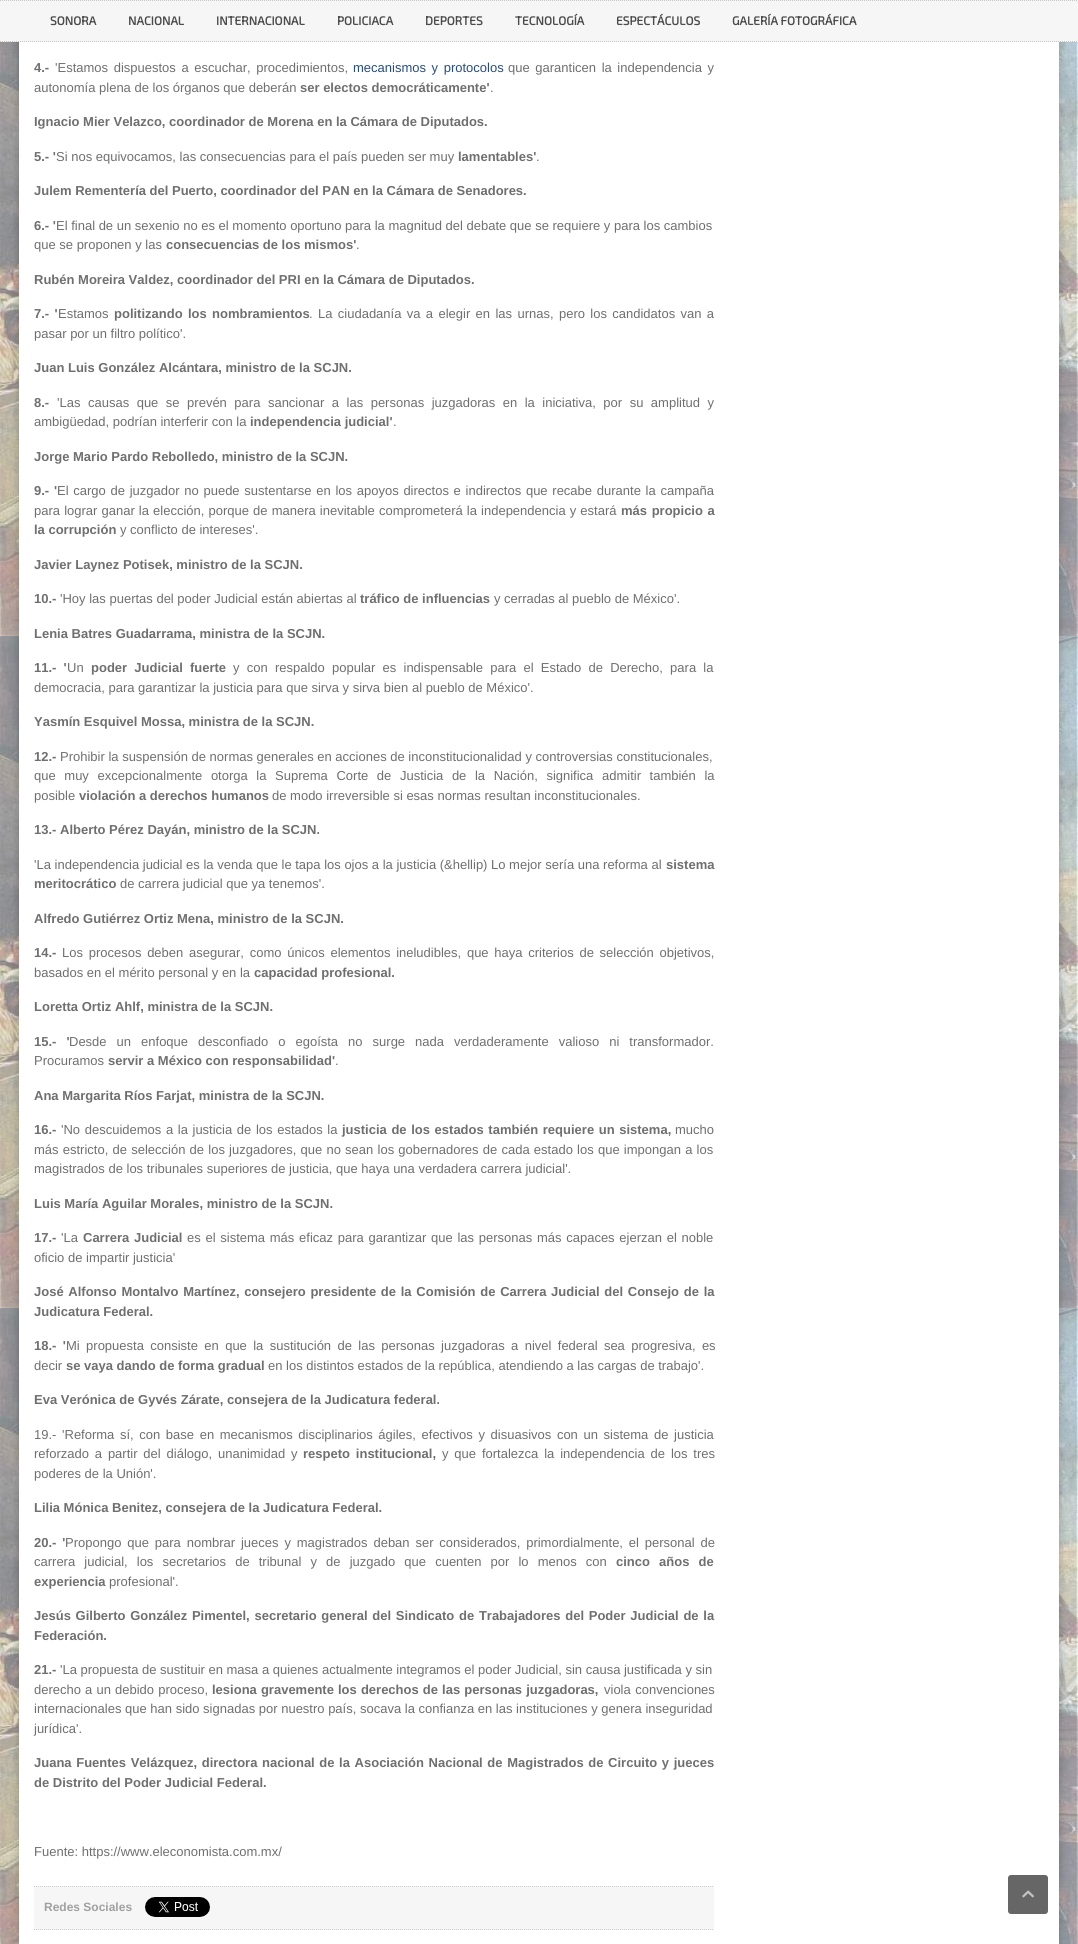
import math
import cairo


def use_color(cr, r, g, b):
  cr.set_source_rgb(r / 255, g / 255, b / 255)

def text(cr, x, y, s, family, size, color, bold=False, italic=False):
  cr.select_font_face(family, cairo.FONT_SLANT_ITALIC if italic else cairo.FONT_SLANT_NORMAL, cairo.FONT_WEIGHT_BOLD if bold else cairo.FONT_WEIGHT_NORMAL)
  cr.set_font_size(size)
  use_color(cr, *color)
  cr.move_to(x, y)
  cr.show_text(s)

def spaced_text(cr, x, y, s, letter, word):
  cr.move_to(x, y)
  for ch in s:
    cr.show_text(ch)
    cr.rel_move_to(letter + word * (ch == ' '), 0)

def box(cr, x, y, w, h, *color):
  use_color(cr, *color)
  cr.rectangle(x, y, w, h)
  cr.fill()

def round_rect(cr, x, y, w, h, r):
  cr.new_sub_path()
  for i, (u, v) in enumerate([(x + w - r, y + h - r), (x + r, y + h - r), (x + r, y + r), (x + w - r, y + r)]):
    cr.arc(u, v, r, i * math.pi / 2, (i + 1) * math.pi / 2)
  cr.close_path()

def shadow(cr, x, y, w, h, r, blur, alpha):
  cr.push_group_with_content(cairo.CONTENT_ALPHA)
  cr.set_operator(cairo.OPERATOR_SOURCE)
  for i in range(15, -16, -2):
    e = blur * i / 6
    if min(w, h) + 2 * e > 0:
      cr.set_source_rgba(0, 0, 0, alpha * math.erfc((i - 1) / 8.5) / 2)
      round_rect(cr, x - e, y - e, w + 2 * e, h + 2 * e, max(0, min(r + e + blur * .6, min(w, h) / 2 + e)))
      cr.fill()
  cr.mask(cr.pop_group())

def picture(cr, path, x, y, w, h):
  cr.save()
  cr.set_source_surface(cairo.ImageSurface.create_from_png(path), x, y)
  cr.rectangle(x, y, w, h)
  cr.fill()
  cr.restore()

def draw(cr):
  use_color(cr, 255, 255, 255)
  cr.paint()
  picture(cr, "img_01.png", 0, 42, 1078, 1902)
  use_color(cr, 0, 0, 0)
  shadow(cr, 19, -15, 1040, 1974, 0, 5, 0.26)
  box(cr, 19, 42, 1040, 1902, 255, 255, 255)
  box(cr, 0, 0, 1078, 42, 246, 246, 246)
  cr.new_path()
  cr.move_to(0, 0.5)
  cr.line_to(1078, 0.5)
  use_color(cr, 197, 197, 197)
  cr.set_line_width(1)
  cr.set_dash([1, 1])
  cr.stroke()
  cr.new_path()
  cr.move_to(0, 41.5)
  cr.line_to(1078, 41.5)
  cr.stroke()
  box(cr, 34, 1886, 680, 44, 246, 246, 246)
  cr.new_path()
  cr.move_to(34, 1886.5)
  cr.line_to(714, 1886.5)
  use_color(cr, 204, 204, 204)
  cr.stroke()
  cr.new_path()
  cr.move_to(34, 1929.5)
  cr.line_to(714, 1929.5)
  cr.stroke()
  picture(cr, "img_02.png", 145, 1897, 65, 20)
  use_color(cr, 102, 102, 102)
  round_rect(cr, 1008, 1875, 40, 39, 3)
  cr.fill()
  picture(cr, "img_03.png", 1022, 1890, 12, 8)
  text(cr, 50, 25, "SONORA", "Exo 2", 12, (75, 75, 75), bold=True)
  text(cr, 128, 25, "NACIONAL", "Exo 2", 12, (75, 75, 75), bold=True)
  text(cr, 216, 25, "INTERNACIONAL", "Exo 2", 12, (75, 75, 75), bold=True)
  text(cr, 337, 25, "POLICIACA", "Exo 2", 12, (75, 75, 75), bold=True)
  text(cr, 425, 25, "DEPORTES", "Exo 2", 12, (75, 75, 75), bold=True)
  text(cr, 515, 25, "TECNOLOGÍA", "Exo 2", 12, (75, 75, 75), bold=True)
  text(cr, 616, 25, "ESPECTÁCULOS", "Exo 2", 12, (75, 75, 75), bold=True)
  text(cr, 732, 25, "GALERÍA FOTOGRÁFICA", "Exo 2", 12, (75, 75, 75), bold=True)
  text(cr, 34, 72, "4.-", "Liberation Sans", 13, (111, 111, 111), bold=True)
  cr.select_font_face("Liberation Sans")
  spaced_text(cr, 55, 72, "'Estamos dispuestos a escuchar, procedimientos,", 0, 2)
  use_color(cr, 38, 76, 132)
  spaced_text(cr, 353, 72, "mecanismos y protocolos", 0, 2)
  use_color(cr, 111, 111, 111)
  spaced_text(cr, 508, 72, "que garanticen la independencia y", 0, 2)
  text(cr, 34, 92, "autonomía plena de los órganos que deberán", "Liberation Sans", 13, (111, 111, 111))
  text(cr, 300, 92, "ser electos democráticamente'", "Liberation Sans", 13, (111, 111, 111), bold=True)
  text(cr, 490, 92, ".", "Liberation Sans", 13, (111, 111, 111))
  text(cr, 34, 126, "Ignacio Mier Velazco, coordinador de Morena en la Cámara de Diputados.", "Liberation Sans", 13, (111, 111, 111), bold=True)
  text(cr, 34, 161, "5.- '", "Liberation Sans", 13, (111, 111, 111), bold=True)
  text(cr, 56, 161, "Si nos equivocamos, las consecuencias para el país pueden ser muy", "Liberation Sans", 13, (111, 111, 111))
  text(cr, 458, 161, "lamentables'", "Liberation Sans", 13, (111, 111, 111), bold=True)
  text(cr, 536, 161, ".", "Liberation Sans", 13, (111, 111, 111))
  text(cr, 34, 195, "Julem Rementería del Puerto, coordinador del PAN en la Cámara de Senadores.", "Liberation Sans", 13, (111, 111, 111), bold=True)
  text(cr, 34, 230, "6.- '", "Liberation Sans", 13, (111, 111, 111), bold=True)
  text(cr, 56, 230, "El final de un sexenio no es el momento oportuno para la magnitud del debate que se requiere y para los cambios", "Liberation Sans", 13, (111, 111, 111))
  text(cr, 34, 249, "que se proponen y las", "Liberation Sans", 13, (111, 111, 111))
  text(cr, 166, 249, "consecuencias de los mismos'", "Liberation Sans", 13, (111, 111, 111), bold=True)
  text(cr, 356, 249, ".", "Liberation Sans", 13, (111, 111, 111))
  text(cr, 34, 284, "Rubén Moreira Valdez, coordinador del PRI en la Cámara de Diputados.", "Liberation Sans", 13, (111, 111, 111), bold=True)
  spaced_text(cr, 34, 318, "7.- '", 0, 1.75)
  text(cr, 58, 318, "Estamos", "Liberation Sans", 13, (111, 111, 111))
  cr.select_font_face("Liberation Sans", cairo.FONT_SLANT_NORMAL, cairo.FONT_WEIGHT_BOLD)
  spaced_text(cr, 114, 318, "politizando los nombramientos", 0, 1.75)
  cr.select_font_face("Liberation Sans")
  spaced_text(cr, 309, 318, ". La ciudadanía va a elegir en las urnas, pero los candidatos van a", 0, 1.75)
  text(cr, 34, 338, "pasar por un filtro político'.", "Liberation Sans", 13, (111, 111, 111))
  text(cr, 34, 372, "Juan Luis González Alcántara, ministro de la SCJN.", "Liberation Sans", 13, (111, 111, 111), bold=True)
  text(cr, 34, 407, "8.-", "Liberation Sans", 13, (111, 111, 111), bold=True)
  cr.select_font_face("Liberation Sans")
  spaced_text(cr, 57, 407, "'Las causas que se prevén para sancionar a las personas juzgadoras en la iniciativa, por su amplitud y", 0, 3.9)
  text(cr, 34, 426, "ambigüedad, podrían interferir con la", "Liberation Sans", 13, (111, 111, 111))
  text(cr, 250, 426, "independencia judicial'", "Liberation Sans", 13, (111, 111, 111), bold=True)
  text(cr, 393, 426, ".", "Liberation Sans", 13, (111, 111, 111))
  text(cr, 34, 461, "Jorge Mario Pardo Rebolledo, ministro de la SCJN.", "Liberation Sans", 13, (111, 111, 111), bold=True)
  spaced_text(cr, 34, 495, "9.- '", 0, 1.1)
  cr.select_font_face("Liberation Sans")
  spaced_text(cr, 57, 495, "El cargo de juzgador no puede sustentarse en los apoyos directos e indirectos que recabe durante la campaña", 0, 1.1)
  spaced_text(cr, 34, 515, "para lograr ganar la elección, porque de manera inevitable comprometerá la independencia y estará", 0, 0.5)
  cr.select_font_face("Liberation Sans", cairo.FONT_SLANT_NORMAL, cairo.FONT_WEIGHT_BOLD)
  spaced_text(cr, 621, 515, "más propicio a", 0, 1)
  text(cr, 34, 534, "la corrupción", "Liberation Sans", 13, (111, 111, 111), bold=True)
  text(cr, 120, 534, "y conflicto de intereses'.", "Liberation Sans", 13, (111, 111, 111))
  text(cr, 34, 569, "Javier Laynez Potisek, ministro de la SCJN.", "Liberation Sans", 13, (111, 111, 111), bold=True)
  text(cr, 34, 603, "10.-", "Liberation Sans", 13, (111, 111, 111), bold=True)
  text(cr, 60, 603, "'Hoy las puertas del poder Judicial están abiertas al", "Liberation Sans", 13, (111, 111, 111))
  text(cr, 360, 603, "tráfico de influencias", "Liberation Sans", 13, (111, 111, 111), bold=True)
  text(cr, 494, 603, "y cerradas al pueblo de México'.", "Liberation Sans", 13, (111, 111, 111))
  text(cr, 34, 638, "Lenia Batres Guadarrama, ministra de la SCJN.", "Liberation Sans", 13, (111, 111, 111), bold=True)
  spaced_text(cr, 34, 672, "11.- '", 0, 3.6)
  text(cr, 67, 672, "Un", "Liberation Sans", 13, (111, 111, 111))
  cr.select_font_face("Liberation Sans", cairo.FONT_SLANT_NORMAL, cairo.FONT_WEIGHT_BOLD)
  spaced_text(cr, 91, 672, "poder Judicial fuerte", 0, 3.6)
  cr.select_font_face("Liberation Sans")
  spaced_text(cr, 233, 672, "y con respaldo popular es indispensable para el Estado de Derecho, para la", 0, 3.6)
  text(cr, 34, 692, "democracia, para garantizar la justicia para que sirva y sirva bien al pueblo de México'.", "Liberation Sans", 13, (111, 111, 111))
  text(cr, 34, 726, "Yasmín Esquivel Mossa, ministra de la SCJN.", "Liberation Sans", 13, (111, 111, 111), bold=True)
  text(cr, 34, 761, "12.-", "Liberation Sans", 13, (111, 111, 111), bold=True)
  text(cr, 60, 761, "Prohibir la suspensión de normas generales en acciones de inconstitucionalidad y controversias constitucionales,", "Liberation Sans", 13, (111, 111, 111))
  spaced_text(cr, 34, 780, "que muy excepcionalmente otorga la Suprema Corte de Justicia de la Nación, significa admitir también la", 0, 5)
  text(cr, 34, 800, "posible", "Liberation Sans", 13, (111, 111, 111))
  text(cr, 79, 800, "violación a derechos humanos", "Liberation Sans", 13, (111, 111, 111), bold=True)
  text(cr, 272, 800, "de modo irreversible si esas normas resultan inconstitucionales.", "Liberation Sans", 13, (111, 111, 111))
  text(cr, 34, 834, "13.- Alberto Pérez Dayán, ministro de la SCJN.", "Liberation Sans", 13, (111, 111, 111), bold=True)
  text(cr, 34, 869, "'La independencia judicial es la venda que le tapa los ojos a la justicia (&hellip) Lo mejor sería una reforma al", "Liberation Sans", 13, (111, 111, 111))
  text(cr, 666, 869, "sistema", "Liberation Sans", 13, (111, 111, 111), bold=True)
  text(cr, 34, 888, "meritocrático", "Liberation Sans", 13, (111, 111, 111), bold=True)
  text(cr, 120, 888, "de carrera judicial que ya tenemos'.", "Liberation Sans", 13, (111, 111, 111))
  text(cr, 34, 923, "Alfredo Gutiérrez Ortiz Mena, ministro de la SCJN.", "Liberation Sans", 13, (111, 111, 111), bold=True)
  text(cr, 34, 957, "14.-", "Liberation Sans", 13, (111, 111, 111), bold=True)
  cr.select_font_face("Liberation Sans")
  spaced_text(cr, 62, 957, "Los procesos deben asegurar, como únicos elementos ineludibles, que haya criterios de selección objetivos,", 0, 2.1)
  text(cr, 34, 977, "basados en el mérito personal y en la", "Liberation Sans", 13, (111, 111, 111))
  text(cr, 254, 977, "capacidad profesional.", "Liberation Sans", 13, (111, 111, 111), bold=True)
  text(cr, 34, 1011, "Loretta Ortiz Ahlf, ministra de la SCJN.", "Liberation Sans", 13, (111, 111, 111), bold=True)
  spaced_text(cr, 34, 1046, "15.- '", 0, 6.4)
  cr.select_font_face("Liberation Sans")
  spaced_text(cr, 69, 1046, "Desde un enfoque desconfiado o egoísta no surge nada verdaderamente valioso ni transformador.", 0, 6.4)
  text(cr, 34, 1065, "Procuramos", "Liberation Sans", 13, (111, 111, 111))
  text(cr, 108, 1065, "servir a México con responsabilidad'", "Liberation Sans", 13, (111, 111, 111), bold=True)
  text(cr, 335, 1065, ".", "Liberation Sans", 13, (111, 111, 111))
  text(cr, 34, 1100, "Ana Margarita Ríos Farjat, ministra de la SCJN.", "Liberation Sans", 13, (111, 111, 111), bold=True)
  text(cr, 34, 1134, "16.-", "Liberation Sans", 13, (111, 111, 111), bold=True)
  cr.select_font_face("Liberation Sans")
  spaced_text(cr, 61, 1134, "'No descuidemos a la justicia de los estados la", 0, 1)
  cr.select_font_face("Liberation Sans", cairo.FONT_SLANT_NORMAL, cairo.FONT_WEIGHT_BOLD)
  spaced_text(cr, 342, 1134, "justicia de los estados también requiere un sistema,", 0, 1)
  text(cr, 675, 1134, "mucho", "Liberation Sans", 13, (111, 111, 111))
  spaced_text(cr, 34, 1154, "más estricto, de selección de los juzgadores, que no sean los gobernadores de cada estado los que impongan a los", 0, 0.6)
  text(cr, 34, 1173, "magistrados de los tribunales superiores de justicia, que haya una verdadera carrera judicial'.", "Liberation Sans", 13, (111, 111, 111))
  text(cr, 34, 1208, "Luis María Aguilar Morales, ministro de la SCJN.", "Liberation Sans", 13, (111, 111, 111), bold=True)
  text(cr, 34, 1242, "17.-", "Liberation Sans", 13, (111, 111, 111), bold=True)
  text(cr, 61, 1242, "'La", "Liberation Sans", 13, (111, 111, 111))
  cr.select_font_face("Liberation Sans", cairo.FONT_SLANT_NORMAL, cairo.FONT_WEIGHT_BOLD)
  spaced_text(cr, 83, 1242, "Carrera Judicial", 0, 1.1)
  cr.select_font_face("Liberation Sans")
  spaced_text(cr, 187, 1242, "es el sistema más eficaz para garantizar que las personas más capaces ejerzan el noble", 0, 1.1)
  text(cr, 34, 1262, "oficio de impartir justicia'", "Liberation Sans", 13, (111, 111, 111))
  cr.select_font_face("Liberation Sans", cairo.FONT_SLANT_NORMAL, cairo.FONT_WEIGHT_BOLD)
  spaced_text(cr, 34, 1296, "José Alfonso Montalvo Martínez, consejero presidente de la Comisión de Carrera Judicial del Consejo de la", 0, 1.1)
  text(cr, 34, 1316, "Judicatura Federal.", "Liberation Sans", 13, (111, 111, 111), bold=True)
  spaced_text(cr, 34, 1350, "18.- '", 0, 2.75)
  cr.select_font_face("Liberation Sans")
  spaced_text(cr, 66, 1350, "Mi propuesta consiste en que la sustitución de las personas juzgadoras a nivel federal sea progresiva, es", 0, 2.75)
  text(cr, 34, 1370, "decir", "Liberation Sans", 13, (111, 111, 111))
  text(cr, 66, 1370, "se vaya dando de forma gradual", "Liberation Sans", 13, (111, 111, 111), bold=True)
  text(cr, 268, 1370, "en los distintos estados de la república, atendiendo a las cargas de trabajo'.", "Liberation Sans", 13, (111, 111, 111))
  text(cr, 34, 1404, "Eva Verónica de Gyvés Zárate, consejera de la Judicatura federal.", "Liberation Sans", 13, (111, 111, 111), bold=True)
  cr.select_font_face("Liberation Sans")
  spaced_text(cr, 34, 1439, "19.- 'Reforma sí, con base en mecanismos disciplinarios ágiles, efectivos y disuasivos con un sistema de justicia", 0, 2)
  spaced_text(cr, 34, 1458, "reforzado a partir del diálogo, unanimidad y", 0, 2.25)
  cr.select_font_face("Liberation Sans", cairo.FONT_SLANT_NORMAL, cairo.FONT_WEIGHT_BOLD)
  spaced_text(cr, 303, 1458, "respeto institucional,", 0, 2.25)
  cr.select_font_face("Liberation Sans")
  spaced_text(cr, 442, 1458, "y que fortalezca la independencia de los tres", 0, 2.25)
  text(cr, 34, 1478, "poderes de la Unión'.", "Liberation Sans", 13, (111, 111, 111))
  text(cr, 34, 1512, "Lilia Mónica Benitez, consejera de la Judicatura Federal.", "Liberation Sans", 13, (111, 111, 111), bold=True)
  spaced_text(cr, 34, 1547, "20.- '", 0, 2.25)
  cr.select_font_face("Liberation Sans")
  spaced_text(cr, 65, 1547, "Propongo que para nombrar jueces y magistrados deban ser considerados, primordialmente, el personal de", 0, 2.25)
  spaced_text(cr, 34, 1566, "carrera judicial, los secretarios de tribunal y de juzgado que cuenten por lo menos con", 0, 5.5)
  cr.select_font_face("Liberation Sans", cairo.FONT_SLANT_NORMAL, cairo.FONT_WEIGHT_BOLD)
  spaced_text(cr, 616, 1566, "cinco años de", 0, 5.5)
  text(cr, 34, 1586, "experiencia", "Liberation Sans", 13, (111, 111, 111), bold=True)
  text(cr, 109, 1586, "profesional'.", "Liberation Sans", 13, (111, 111, 111))
  cr.select_font_face("Liberation Sans", cairo.FONT_SLANT_NORMAL, cairo.FONT_WEIGHT_BOLD)
  spaced_text(cr, 34, 1620, "Jesús Gilberto González Pimentel, secretario general del Sindicato de Trabajadores del Poder Judicial de la", 0, 1.1)
  text(cr, 34, 1640, "Federación.", "Liberation Sans", 13, (111, 111, 111), bold=True)
  text(cr, 34, 1674, "21.-", "Liberation Sans", 13, (111, 111, 111), bold=True)
  text(cr, 60, 1674, "'La propuesta de sustituir en masa a quienes actualmente integramos el poder Judicial, sin causa justificada y sin", "Liberation Sans", 13, (111, 111, 111))
  spaced_text(cr, 34, 1694, "derecho a un debido proceso,", 0, 0.5)
  cr.select_font_face("Liberation Sans", cairo.FONT_SLANT_NORMAL, cairo.FONT_WEIGHT_BOLD)
  spaced_text(cr, 212, 1694, "lesiona gravemente los derechos de las personas juzgadoras,", 0, 0.5)
  cr.select_font_face("Liberation Sans")
  spaced_text(cr, 604, 1694, "viola convenciones", 0, 1)
  text(cr, 34, 1713, "internacionales que han sido signadas por nuestro país, socava la confianza en las instituciones y genera inseguridad", "Liberation Sans", 13, (111, 111, 111))
  text(cr, 34, 1733, "jurídica'.", "Liberation Sans", 13, (111, 111, 111))
  cr.select_font_face("Liberation Sans", cairo.FONT_SLANT_NORMAL, cairo.FONT_WEIGHT_BOLD)
  spaced_text(cr, 34, 1767, "Juana Fuentes Velázquez, directora nacional de la Asociación Nacional de Magistrados de Circuito y jueces", 0, 1)
  text(cr, 34, 1787, "de Distrito del Poder Judicial Federal.", "Liberation Sans", 13, (111, 111, 111), bold=True)
  text(cr, 34, 1856, "Fuente: https://www.eleconomista.com.mx/", "Liberation Sans", 13, (111, 111, 111))
  text(cr, 44, 1911, "Redes Sociales", "Liberation Sans", 12, (160, 160, 160), bold=True)


surface = cairo.ImageSurface(cairo.FORMAT_RGB24, 1078, 1944)
cr = cairo.Context(surface)
options = cairo.FontOptions()
options.set_hint_metrics(cairo.HINT_METRICS_OFF)
options.set_hint_style(cairo.HINT_STYLE_NONE)
cr.set_font_options(options)
cr.set_miter_limit(4)
draw(cr)
surface.write_to_png("out.png")
